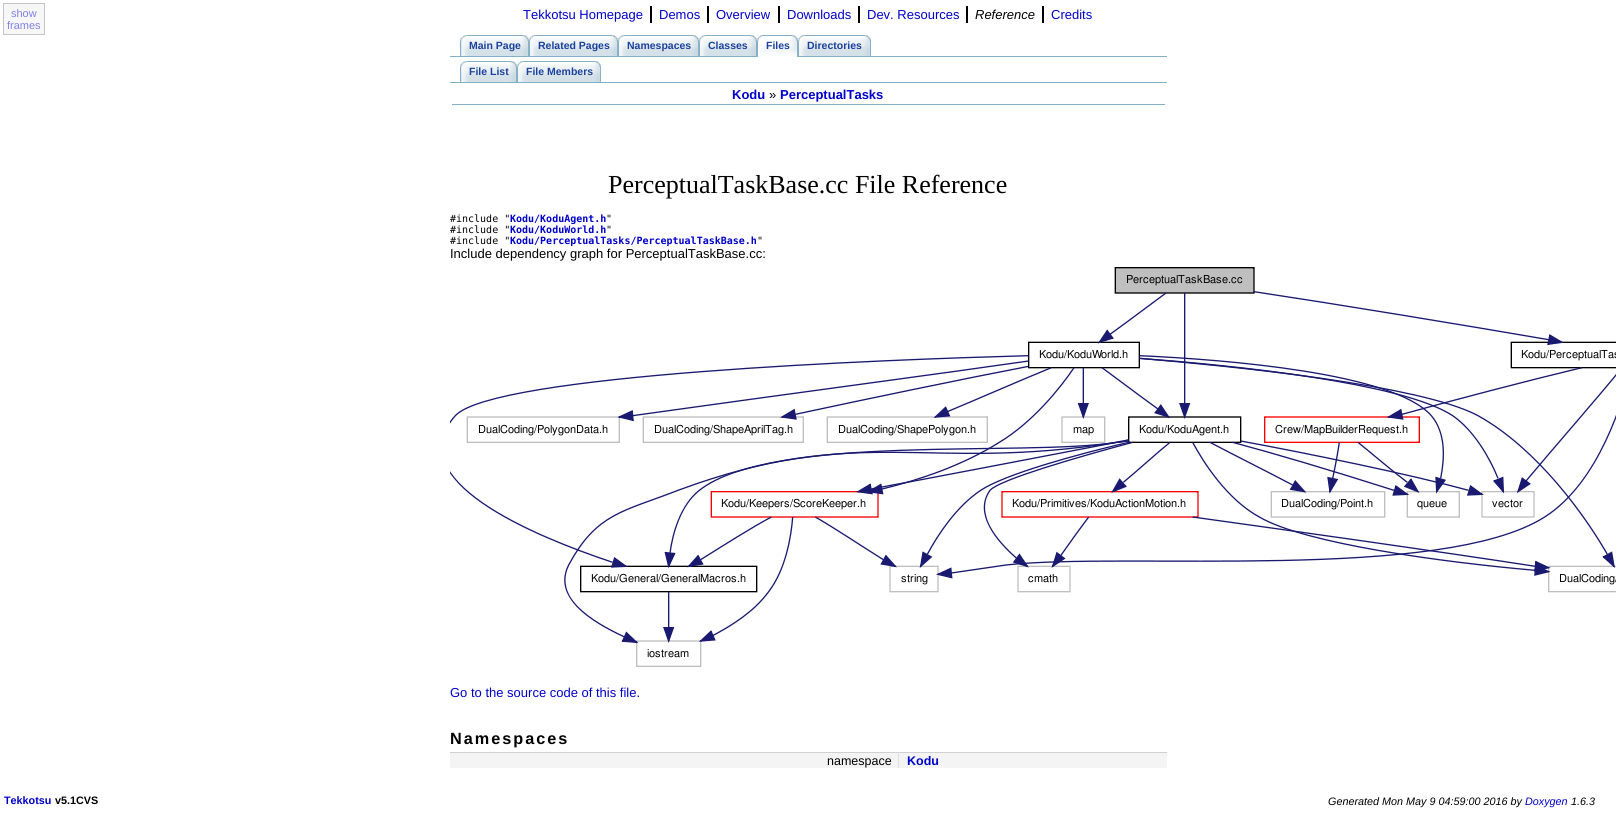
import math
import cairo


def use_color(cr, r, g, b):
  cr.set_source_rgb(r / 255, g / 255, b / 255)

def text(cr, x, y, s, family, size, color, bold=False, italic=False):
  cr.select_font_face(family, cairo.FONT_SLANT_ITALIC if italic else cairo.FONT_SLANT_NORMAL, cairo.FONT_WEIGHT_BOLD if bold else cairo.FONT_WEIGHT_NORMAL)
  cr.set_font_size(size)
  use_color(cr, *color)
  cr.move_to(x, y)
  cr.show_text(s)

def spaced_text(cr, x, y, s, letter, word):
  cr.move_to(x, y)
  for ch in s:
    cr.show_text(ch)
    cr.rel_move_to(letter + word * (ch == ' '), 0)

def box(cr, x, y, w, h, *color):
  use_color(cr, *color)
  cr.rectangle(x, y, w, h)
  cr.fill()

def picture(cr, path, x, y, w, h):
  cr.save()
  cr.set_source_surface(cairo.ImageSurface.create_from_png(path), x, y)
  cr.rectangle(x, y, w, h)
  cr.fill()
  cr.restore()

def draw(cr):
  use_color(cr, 255, 255, 255)
  cr.paint()
  use_color(cr, 247, 247, 247)
  cr.rectangle(3.5, 3.5, 41, 31)
  cr.fill_preserve()
  use_color(cr, 196, 196, 196)
  cr.set_line_width(1)
  cr.stroke()
  box(cr, 650, 6, 2, 17, 0, 0, 0)
  box(cr, 707, 6, 2, 17, 0, 0, 0)
  box(cr, 778, 6, 2, 17, 0, 0, 0)
  box(cr, 858, 6, 2, 17, 0, 0, 0)
  box(cr, 966, 6, 2, 17, 0, 0, 0)
  box(cr, 1042, 6, 2, 17, 0, 0, 0)
  box(cr, 450, 56, 717, 1, 132, 176, 199)
  picture(cr, "img_01.png", 470, 35, 59, 21)
  picture(cr, "img_02.png", 460, 35, 10, 21)
  picture(cr, "img_03.png", 538, 35, 80, 21)
  picture(cr, "img_04.png", 529, 35, 9, 21)
  picture(cr, "img_05.png", 627, 35, 72, 21)
  picture(cr, "img_04.png", 618, 35, 9, 21)
  picture(cr, "img_06.png", 708, 35, 49, 21)
  picture(cr, "img_04.png", 699, 35, 9, 21)
  picture(cr, "img_07.png", 764, 35, 34, 22)
  picture(cr, "img_08.png", 757, 35, 7, 22)
  picture(cr, "img_09.png", 807, 35, 64, 21)
  picture(cr, "img_04.png", 798, 35, 9, 21)
  box(cr, 450, 82, 717, 1, 132, 176, 199)
  picture(cr, "img_10.png", 470, 61, 47, 21)
  picture(cr, "img_02.png", 460, 61, 10, 21)
  picture(cr, "img_11.png", 526, 61, 75, 21)
  picture(cr, "img_04.png", 517, 61, 9, 21)
  box(cr, 452, 104, 713, 1, 132, 176, 199)
  picture(cr, "img_12.png", 450, 267, 1166, 400)
  box(cr, 450, 753, 448, 15, 244, 244, 244)
  box(cr, 450, 752, 717, 1, 208, 208, 208)
  box(cr, 898, 752, 1, 16, 224, 224, 224)
  box(cr, 899, 753, 268, 15, 244, 244, 244)
  text(cr, 11, 17, "show", "Liberation Sans", 11, (128, 128, 230))
  text(cr, 7, 29, "frames", "Liberation Sans", 11, (128, 128, 230))
  text(cr, 523, 19, "Tekkotsu Homepage", "Liberation Sans", 13, (0, 0, 204))
  text(cr, 659, 19, "Demos", "Liberation Sans", 13, (0, 0, 204))
  text(cr, 716, 19, "Overview", "Liberation Sans", 13, (0, 0, 204))
  text(cr, 787, 19, "Downloads", "Liberation Sans", 13, (0, 0, 204))
  text(cr, 867, 19, "Dev. Resources", "Liberation Sans", 13, (0, 0, 204))
  text(cr, 975, 19, "Reference", "Liberation Sans", 13, (0, 0, 0), italic=True)
  text(cr, 1051, 19, "Credits", "Liberation Sans", 13, (0, 0, 204))
  text(cr, 469, 49, "Main Page", "Liberation Sans", 10.5, (26, 65, 157), bold=True)
  text(cr, 538, 49, "Related Pages", "Liberation Sans", 10.5, (26, 65, 157), bold=True)
  text(cr, 627, 49, "Namespaces", "Liberation Sans", 10.5, (26, 65, 157), bold=True)
  text(cr, 708, 49, "Classes", "Liberation Sans", 10.5, (26, 65, 157), bold=True)
  text(cr, 766, 49, "Files", "Liberation Sans", 10.5, (26, 65, 157), bold=True)
  text(cr, 807, 49, "Directories", "Liberation Sans", 10.5, (26, 65, 157), bold=True)
  text(cr, 469, 75, "File List", "Liberation Sans", 10.5, (26, 65, 157), bold=True)
  text(cr, 526, 75, "File Members", "Liberation Sans", 10.5, (26, 65, 157), bold=True)
  text(cr, 732, 99, "Kodu", "Liberation Sans", 13, (0, 0, 204), bold=True)
  text(cr, 769, 99, "»", "Liberation Sans", 13, (0, 0, 0))
  text(cr, 780, 99, "PerceptualTasks", "Liberation Sans", 13, (0, 0, 204), bold=True)
  text(cr, 608, 193, "PerceptualTaskBase.cc File Reference", "Liberation Serif", 26, (0, 0, 0))
  text(cr, 450, 222, "#include \"", "DejaVu Sans Mono", 10, (0, 0, 0))
  text(cr, 510, 222, "Kodu/KoduAgent.h", "DejaVu Sans Mono", 10, (0, 0, 204), bold=True)
  text(cr, 606, 222, "\"", "DejaVu Sans Mono", 10, (0, 0, 0))
  text(cr, 450, 233, "#include \"", "DejaVu Sans Mono", 10, (0, 0, 0))
  text(cr, 510, 233, "Kodu/KoduWorld.h", "DejaVu Sans Mono", 10, (0, 0, 204), bold=True)
  text(cr, 606, 233, "\"", "DejaVu Sans Mono", 10, (0, 0, 0))
  text(cr, 450, 244, "#include \"", "DejaVu Sans Mono", 10, (0, 0, 0))
  text(cr, 510, 244, "Kodu/PerceptualTasks/PerceptualTaskBase.h", "DejaVu Sans Mono", 10, (0, 0, 204), bold=True)
  text(cr, 757, 244, "\"", "DejaVu Sans Mono", 10, (0, 0, 0))
  text(cr, 450, 258, "Include dependency graph for PerceptualTaskBase.cc:", "Liberation Sans", 13, (0, 0, 0))
  text(cr, 450, 697, "Go to the source code of this file.", "Liberation Sans", 13, (0, 0, 204))
  cr.select_font_face("Liberation Sans", cairo.FONT_SLANT_NORMAL, cairo.FONT_WEIGHT_BOLD)
  cr.set_font_size(16.25)
  use_color(cr, 0, 0, 0)
  spaced_text(cr, 450, 744, "Namespaces", 2, 0)
  text(cr, 827, 765, "namespace", "Liberation Sans", 12.5, (0, 0, 0))
  text(cr, 907, 765, "Kodu", "Liberation Sans", 12.5, (0, 0, 204), bold=True)
  text(cr, 4, 804, "Tekkotsu", "Liberation Sans", 10.8, (0, 0, 204), bold=True)
  text(cr, 55, 804, "v5.1CVS", "Liberation Sans", 10.8, (0, 0, 0), bold=True)
  text(cr, 1328, 805, "Generated Mon May 9 04:59:00 2016 by", "Liberation Sans", 10.8, (0, 0, 0), italic=True)
  text(cr, 1525, 805, "Doxygen", "Liberation Sans", 10.8, (0, 0, 204), italic=True)
  text(cr, 1571, 805, "1.6.3", "Liberation Sans", 10.8, (0, 0, 0), italic=True)


surface = cairo.ImageSurface(cairo.FORMAT_RGB24, 1616, 840)
cr = cairo.Context(surface)
options = cairo.FontOptions()
options.set_hint_metrics(cairo.HINT_METRICS_OFF)
options.set_hint_style(cairo.HINT_STYLE_NONE)
cr.set_font_options(options)
cr.set_miter_limit(4)
draw(cr)
surface.write_to_png("out.png")
